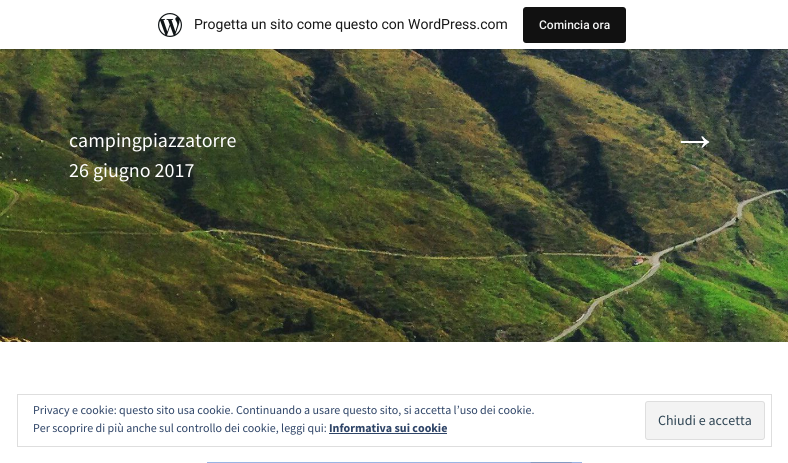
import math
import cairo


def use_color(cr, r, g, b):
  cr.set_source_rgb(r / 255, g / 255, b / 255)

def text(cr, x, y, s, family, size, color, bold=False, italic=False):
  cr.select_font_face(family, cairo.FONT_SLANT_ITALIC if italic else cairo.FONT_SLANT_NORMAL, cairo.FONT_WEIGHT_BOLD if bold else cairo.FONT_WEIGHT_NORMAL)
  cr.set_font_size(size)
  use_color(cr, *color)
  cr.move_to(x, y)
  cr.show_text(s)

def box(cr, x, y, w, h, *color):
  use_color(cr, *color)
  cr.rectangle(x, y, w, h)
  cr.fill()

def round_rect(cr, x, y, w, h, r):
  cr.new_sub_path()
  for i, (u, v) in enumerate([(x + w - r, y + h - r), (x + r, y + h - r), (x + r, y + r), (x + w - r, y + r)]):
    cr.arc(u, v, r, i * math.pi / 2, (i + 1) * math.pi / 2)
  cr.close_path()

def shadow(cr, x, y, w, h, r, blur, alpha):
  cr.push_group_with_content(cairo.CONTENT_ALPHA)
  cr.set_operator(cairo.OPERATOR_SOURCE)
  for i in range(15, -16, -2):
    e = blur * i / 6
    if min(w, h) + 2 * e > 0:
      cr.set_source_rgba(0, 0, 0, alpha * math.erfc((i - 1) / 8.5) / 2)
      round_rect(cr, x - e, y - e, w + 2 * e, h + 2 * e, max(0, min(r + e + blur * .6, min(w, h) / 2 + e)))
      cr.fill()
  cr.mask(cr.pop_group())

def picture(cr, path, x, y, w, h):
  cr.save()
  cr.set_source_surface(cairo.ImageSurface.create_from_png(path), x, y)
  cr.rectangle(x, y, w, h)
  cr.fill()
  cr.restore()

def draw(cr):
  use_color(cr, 255, 255, 255)
  cr.paint()
  picture(cr, "img_02.png", 0, 49, 788, 293)
  use_color(cr, 0, 0, 0)
  shadow(cr, 0, 1, 788, 49, 0, 1, 0.05)
  cr.set_source_rgba(0, 0, 0, 0.08)
  cr.new_path()
  cr.move_to(1, 49)
  cr.line_to(1, 52)
  cr.line_to(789, 52)
  cr.line_to(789, 3)
  cr.line_to(788, 3)
  cr.line_to(788, 49)
  cr.close_path()
  cr.fill()
  box(cr, 0, 0, 788, 49, 255, 255, 255)
  picture(cr, "img_01.png", 158, 13, 24, 24)
  use_color(cr, 17, 17, 17)
  round_rect(cr, 523, 7, 103, 36, 3)
  cr.fill()
  cr.rectangle(17.5, 394.5, 754, 52)
  use_color(cr, 222, 222, 222)
  cr.set_line_width(1)
  cr.stroke()
  use_color(cr, 243, 243, 243)
  round_rect(cr, 645.5, 401.5, 119, 38, 2.5)
  cr.fill_preserve()
  use_color(cr, 222, 222, 222)
  cr.stroke()
  box(cr, 329, 433, 118, 1, 46, 68, 103)
  picture(cr, "img_03.png", 207, 462, 375, 1)
  text(cr, 194, 29, "Progetta un sito come questo con WordPress.com", "Roboto", 14, (23, 23, 23))
  text(cr, 539, 29, "Comincia ora", "Roboto Medium", 12, (246, 247, 247))
  text(cr, 69, 147, "campingpiazzatorre", "Source Sans Pro", 20, (255, 255, 255))
  text(cr, 69, 177, "26 giugno 2017", "Source Sans Pro", 20, (255, 255, 255))
  text(cr, 671, 150, "→", "Liberation Sans", 48, (255, 255, 255), bold=True)
  text(cr, 33, 414, "Privacy e cookie: questo sito usa cookie. Continuando a usare questo sito, si accetta l’uso dei cookie.", "Source Sans Pro", 12, (46, 68, 103))
  text(cr, 658, 425, "Chiudi e accetta", "Source Sans Pro", 14, (46, 68, 83))
  text(cr, 33, 432, "Per scoprire di più anche sul controllo dei cookie, leggi qui:", "Source Sans Pro", 12, (46, 68, 103))
  text(cr, 329, 432, "Informativa sui cookie", "Source Sans Pro", 12, (46, 68, 103), bold=True)


surface = cairo.ImageSurface(cairo.FORMAT_RGB24, 788, 463)
cr = cairo.Context(surface)
options = cairo.FontOptions()
options.set_hint_metrics(cairo.HINT_METRICS_OFF)
options.set_hint_style(cairo.HINT_STYLE_NONE)
cr.set_font_options(options)
cr.set_miter_limit(4)
draw(cr)
surface.write_to_png("out.png")
